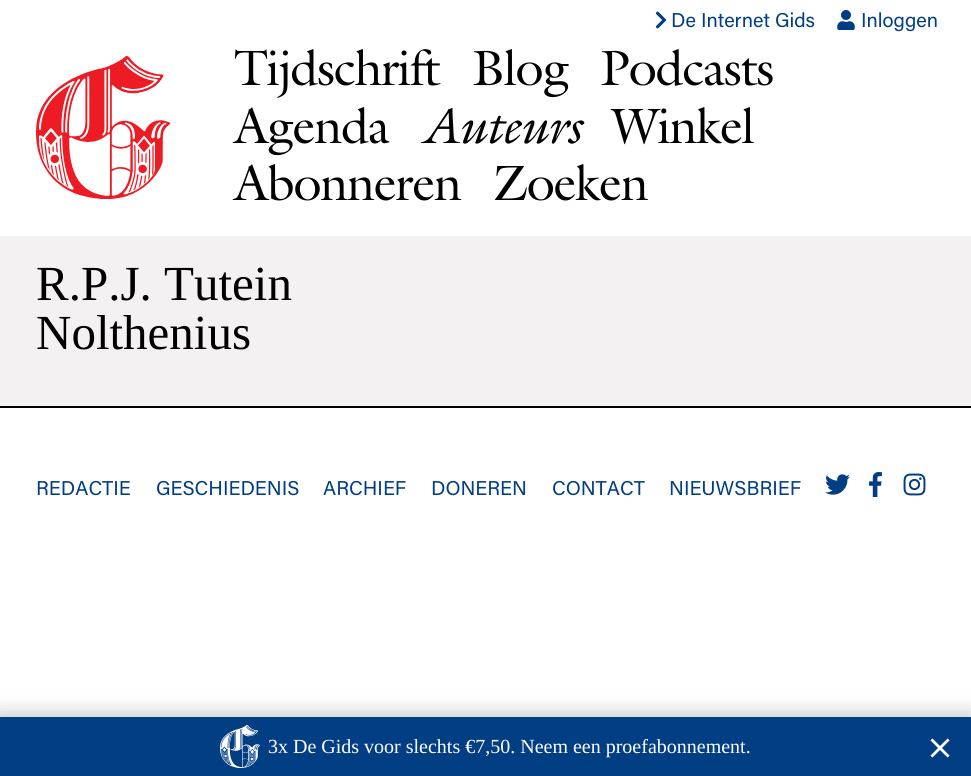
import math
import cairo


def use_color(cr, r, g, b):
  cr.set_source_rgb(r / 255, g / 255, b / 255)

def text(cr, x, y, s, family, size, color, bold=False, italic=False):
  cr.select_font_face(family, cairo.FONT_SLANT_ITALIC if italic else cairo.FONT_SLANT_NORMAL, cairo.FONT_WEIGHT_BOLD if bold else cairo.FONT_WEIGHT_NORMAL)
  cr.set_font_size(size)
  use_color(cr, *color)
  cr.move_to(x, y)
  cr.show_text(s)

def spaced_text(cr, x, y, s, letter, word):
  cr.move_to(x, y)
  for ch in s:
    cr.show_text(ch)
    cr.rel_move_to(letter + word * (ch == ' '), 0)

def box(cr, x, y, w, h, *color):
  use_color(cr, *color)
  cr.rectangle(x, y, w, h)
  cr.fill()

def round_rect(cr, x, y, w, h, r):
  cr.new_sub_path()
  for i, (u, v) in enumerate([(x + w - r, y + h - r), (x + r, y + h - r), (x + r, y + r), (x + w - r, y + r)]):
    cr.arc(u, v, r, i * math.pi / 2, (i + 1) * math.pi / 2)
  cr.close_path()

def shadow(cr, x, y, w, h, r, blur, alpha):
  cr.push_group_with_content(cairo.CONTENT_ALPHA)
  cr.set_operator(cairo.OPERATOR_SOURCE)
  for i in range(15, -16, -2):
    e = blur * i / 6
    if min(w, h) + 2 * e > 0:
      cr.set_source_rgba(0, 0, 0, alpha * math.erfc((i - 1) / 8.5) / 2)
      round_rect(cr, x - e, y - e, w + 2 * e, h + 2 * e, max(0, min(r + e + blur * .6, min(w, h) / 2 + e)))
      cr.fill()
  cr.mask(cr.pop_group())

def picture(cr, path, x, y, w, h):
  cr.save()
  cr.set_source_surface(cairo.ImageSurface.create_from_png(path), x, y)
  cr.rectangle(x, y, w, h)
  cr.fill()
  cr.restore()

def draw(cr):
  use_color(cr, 255, 255, 255)
  cr.paint()
  picture(cr, "img_01.png", 655, 11, 12, 18)
  picture(cr, "img_02.png", 837, 10, 18, 20)
  picture(cr, "img_03.png", 36, 56, 134, 143)
  box(cr, 0, 236, 971, 170, 243, 241, 241)
  box(cr, 0, 406, 971, 2, 0, 0, 0)
  picture(cr, "img_04.png", 825, 474, 25, 21)
  picture(cr, "img_05.png", 869, 472, 13, 25)
  picture(cr, "img_06.png", 903, 473, 23, 23)
  use_color(cr, 0, 0, 0)
  shadow(cr, -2, 712, 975, 63, 0, 9, 0.2)
  box(cr, 0, 717, 971, 59, 2, 62, 132)
  picture(cr, "img_07.png", 220, 725, 40, 43)
  picture(cr, "img_08.png", 930, 738, 20, 20)
  text(cr, 671, 27, "De Internet Gids", "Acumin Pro", 20, (2, 62, 132))
  text(cr, 861, 27, "Inloggen", "Acumin Pro", 20, (2, 62, 132))
  cr.select_font_face("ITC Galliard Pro")
  cr.set_font_size(50)
  use_color(cr, 0, 0, 0)
  spaced_text(cr, 234, 85, "Tijdschrift", -1.25, 0)
  spaced_text(cr, 472, 85, "Blog", -1.25, 0)
  spaced_text(cr, 600, 85, "Podcasts", -1.25, 0)
  spaced_text(cr, 234, 143, "Agenda", -1.25, 0)
  cr.select_font_face("ITC Galliard Pro", cairo.FONT_SLANT_ITALIC)
  spaced_text(cr, 421, 143, "Auteurs", -1.25, 0)
  cr.select_font_face("ITC Galliard Pro")
  spaced_text(cr, 612, 143, "Winkel", -1.25, 0)
  spaced_text(cr, 234, 200, "Abonneren", -1.25, 0)
  spaced_text(cr, 493, 200, "Zoeken", -1.25, 0)
  text(cr, 36, 300, "R.P.J. Tutein", "Liberation Serif", 49, (0, 0, 0))
  text(cr, 36, 349, "Nolthenius", "Liberation Serif", 49, (0, 0, 0))
  text(cr, 36, 495, "REDACTIE", "Acumin Pro", 20, (2, 62, 132))
  text(cr, 156, 495, "GESCHIEDENIS", "Acumin Pro", 20, (2, 62, 132))
  text(cr, 323, 495, "ARCHIEF", "Acumin Pro", 20, (2, 62, 132))
  text(cr, 431, 495, "DONEREN", "Acumin Pro", 20, (2, 62, 132))
  text(cr, 552, 495, "CONTACT", "Acumin Pro", 20, (2, 62, 132))
  text(cr, 669, 495, "NIEUWSBRIEF", "Acumin Pro", 20, (2, 62, 132))
  text(cr, 268, 753, "3x De Gids voor slechts €7,50. Neem een proefabonnement.", "Liberation Serif", 20, (255, 255, 255))


surface = cairo.ImageSurface(cairo.FORMAT_RGB24, 971, 776)
cr = cairo.Context(surface)
options = cairo.FontOptions()
options.set_hint_metrics(cairo.HINT_METRICS_OFF)
options.set_hint_style(cairo.HINT_STYLE_NONE)
cr.set_font_options(options)
cr.set_miter_limit(4)
draw(cr)
surface.write_to_png("out.png")
